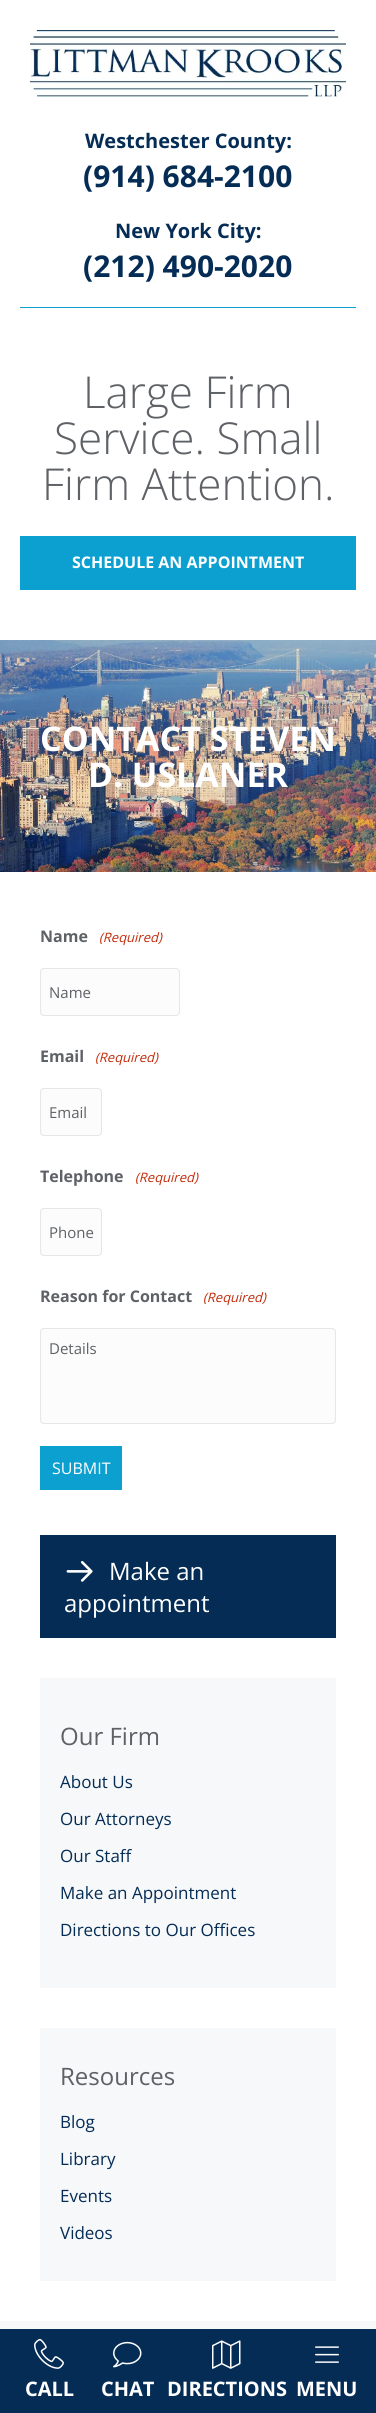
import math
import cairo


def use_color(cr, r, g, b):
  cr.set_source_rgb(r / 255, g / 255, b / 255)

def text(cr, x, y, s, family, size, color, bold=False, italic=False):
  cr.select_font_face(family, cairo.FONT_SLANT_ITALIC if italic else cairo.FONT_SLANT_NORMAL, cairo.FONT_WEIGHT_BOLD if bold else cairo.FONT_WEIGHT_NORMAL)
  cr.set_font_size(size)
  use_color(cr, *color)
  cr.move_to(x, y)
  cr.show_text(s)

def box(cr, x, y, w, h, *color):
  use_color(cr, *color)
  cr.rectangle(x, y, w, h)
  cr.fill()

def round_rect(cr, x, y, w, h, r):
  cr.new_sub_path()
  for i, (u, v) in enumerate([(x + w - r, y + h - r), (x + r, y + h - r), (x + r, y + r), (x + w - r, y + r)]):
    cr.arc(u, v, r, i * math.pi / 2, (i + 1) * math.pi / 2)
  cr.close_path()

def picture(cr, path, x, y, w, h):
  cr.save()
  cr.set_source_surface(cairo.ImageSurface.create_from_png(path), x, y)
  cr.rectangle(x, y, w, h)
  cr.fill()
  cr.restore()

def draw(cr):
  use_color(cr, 255, 255, 255)
  cr.paint()
  picture(cr, "img_01.png", 30, 30, 316, 67)
  box(cr, 20, 307, 336, 1, 12, 160, 209)
  box(cr, 20, 536, 336, 54, 12, 160, 209)
  picture(cr, "img_02.png", 0, 640, 376, 232)
  use_color(cr, 252, 252, 252)
  round_rect(cr, 40.5, 968.5, 139, 47, 3.5)
  cr.fill_preserve()
  use_color(cr, 230, 230, 230)
  cr.set_line_width(1)
  cr.stroke()
  use_color(cr, 252, 252, 252)
  round_rect(cr, 40.5, 1088.5, 61, 47, 3.5)
  cr.fill_preserve()
  use_color(cr, 230, 230, 230)
  cr.stroke()
  use_color(cr, 252, 252, 252)
  round_rect(cr, 40.5, 1208.5, 61, 47, 3.5)
  cr.fill_preserve()
  use_color(cr, 230, 230, 230)
  cr.stroke()
  use_color(cr, 252, 252, 252)
  round_rect(cr, 40.5, 1328.5, 295, 95, 3.5)
  cr.fill_preserve()
  use_color(cr, 230, 230, 230)
  cr.stroke()
  box(cr, 40, 1446, 82, 44, 12, 160, 209)
  box(cr, 40, 1535, 296, 103, 4, 44, 85)
  picture(cr, "img_03.png", 66, 1561, 27, 21)
  box(cr, 40, 1678, 296, 310, 246, 248, 250)
  box(cr, 40, 2028, 296, 253, 246, 248, 250)
  box(cr, 0, 2321, 376, 8, 246, 248, 250)
  box(cr, 0, 2329, 376, 84, 4, 44, 85)
  picture(cr, "img_04.png", 34, 2338, 30, 31)
  picture(cr, "img_05.png", 113, 2341, 29, 27)
  picture(cr, "img_06.png", 212, 2340, 29, 29)
  picture(cr, "img_07.png", 315, 2346, 24, 17)
  text(cr, 85, 148, "Westchester County:", "Open Sans", 20, (4, 44, 85), bold=True)
  text(cr, 83, 187, "(914) 684-2100", "Open Sans", 30, (4, 44, 85), bold=True)
  text(cr, 115, 238, "New York City:", "Open Sans", 20, (4, 44, 85), bold=True)
  text(cr, 83, 277, "(212) 490-2020", "Open Sans", 30, (4, 44, 85), bold=True)
  text(cr, 83, 408, "Large Firm", "Open Sans Light", 44, (94, 97, 102))
  text(cr, 54, 454, "Service. Small", "Open Sans Light", 44, (94, 97, 102))
  text(cr, 42, 500, "Firm Attention.", "Open Sans Light", 44, (94, 97, 102))
  text(cr, 72, 568, "SCHEDULE AN APPOINTMENT", "Open Sans", 16, (255, 255, 255), bold=True)
  text(cr, 40, 751, "CONTACT STEVEN", "Open Sans", 34, (255, 255, 255), bold=True)
  text(cr, 88, 787, "D. USLANER", "Open Sans", 34, (255, 255, 255), bold=True)
  text(cr, 40, 942, "Name", "Open Sans", 16, (94, 97, 102), bold=True)
  text(cr, 99, 942, "(Required)", "Open Sans", 13, (192, 43, 10), italic=True)
  text(cr, 49, 998, "Name", "Open Sans", 15, (94, 97, 102))
  text(cr, 40, 1062, "Email", "Open Sans", 16, (94, 97, 102), bold=True)
  text(cr, 95, 1062, "(Required)", "Open Sans", 13, (192, 43, 10), italic=True)
  text(cr, 49, 1118, "Email", "Open Sans", 15, (94, 97, 102))
  text(cr, 40, 1182, "Telephone", "Open Sans", 16, (94, 97, 102), bold=True)
  text(cr, 135, 1182, "(Required)", "Open Sans", 13, (192, 43, 10), italic=True)
  text(cr, 49, 1238, "Phone", "Open Sans", 15, (94, 97, 102))
  text(cr, 40, 1302, "Reason for Contact", "Open Sans", 16, (94, 97, 102), bold=True)
  text(cr, 203, 1302, "(Required)", "Open Sans", 13, (192, 43, 10), italic=True)
  text(cr, 49, 1354, "Details", "Open Sans", 15, (94, 97, 102))
  text(cr, 52, 1474, "SUBMIT", "Open Sans", 16, (255, 255, 255))
  text(cr, 109, 1580, "Make an", "Open Sans", 24, (255, 255, 255))
  text(cr, 64, 1612, "appointment", "Open Sans", 24, (255, 255, 255))
  text(cr, 60, 1745, "Our Firm", "Open Sans", 24, (94, 97, 102))
  text(cr, 60, 1788, "About Us", "Open Sans", 17, (4, 44, 85))
  text(cr, 60, 1825, "Our Attorneys", "Open Sans", 17, (4, 44, 85))
  text(cr, 60, 1862, "Our Staff", "Open Sans", 17, (4, 44, 85))
  text(cr, 60, 1899, "Make an Appointment", "Open Sans", 17, (4, 44, 85))
  text(cr, 60, 1936, "Directions to Our Offices", "Open Sans", 17, (4, 44, 85))
  text(cr, 60, 2085, "Resources", "Open Sans", 24, (94, 97, 102))
  text(cr, 60, 2128, "Blog", "Open Sans", 17, (4, 44, 85))
  text(cr, 60, 2165, "Library", "Open Sans", 17, (4, 44, 85))
  text(cr, 60, 2202, "Events", "Open Sans", 17, (4, 44, 85))
  text(cr, 60, 2239, "Videos", "Open Sans", 17, (4, 44, 85))
  text(cr, 25, 2396, "CALL", "Open Sans", 20, (255, 255, 255), bold=True)
  text(cr, 101, 2396, "CHAT", "Open Sans", 20, (255, 255, 255), bold=True)
  text(cr, 167, 2396, "DIRECTIONS", "Open Sans", 20, (255, 255, 255), bold=True)
  text(cr, 296, 2396, "MENU", "Open Sans", 20, (255, 255, 255), bold=True)


surface = cairo.ImageSurface(cairo.FORMAT_RGB24, 376, 2413)
cr = cairo.Context(surface)
options = cairo.FontOptions()
options.set_hint_metrics(cairo.HINT_METRICS_OFF)
options.set_hint_style(cairo.HINT_STYLE_NONE)
cr.set_font_options(options)
cr.set_miter_limit(4)
draw(cr)
surface.write_to_png("out.png")
